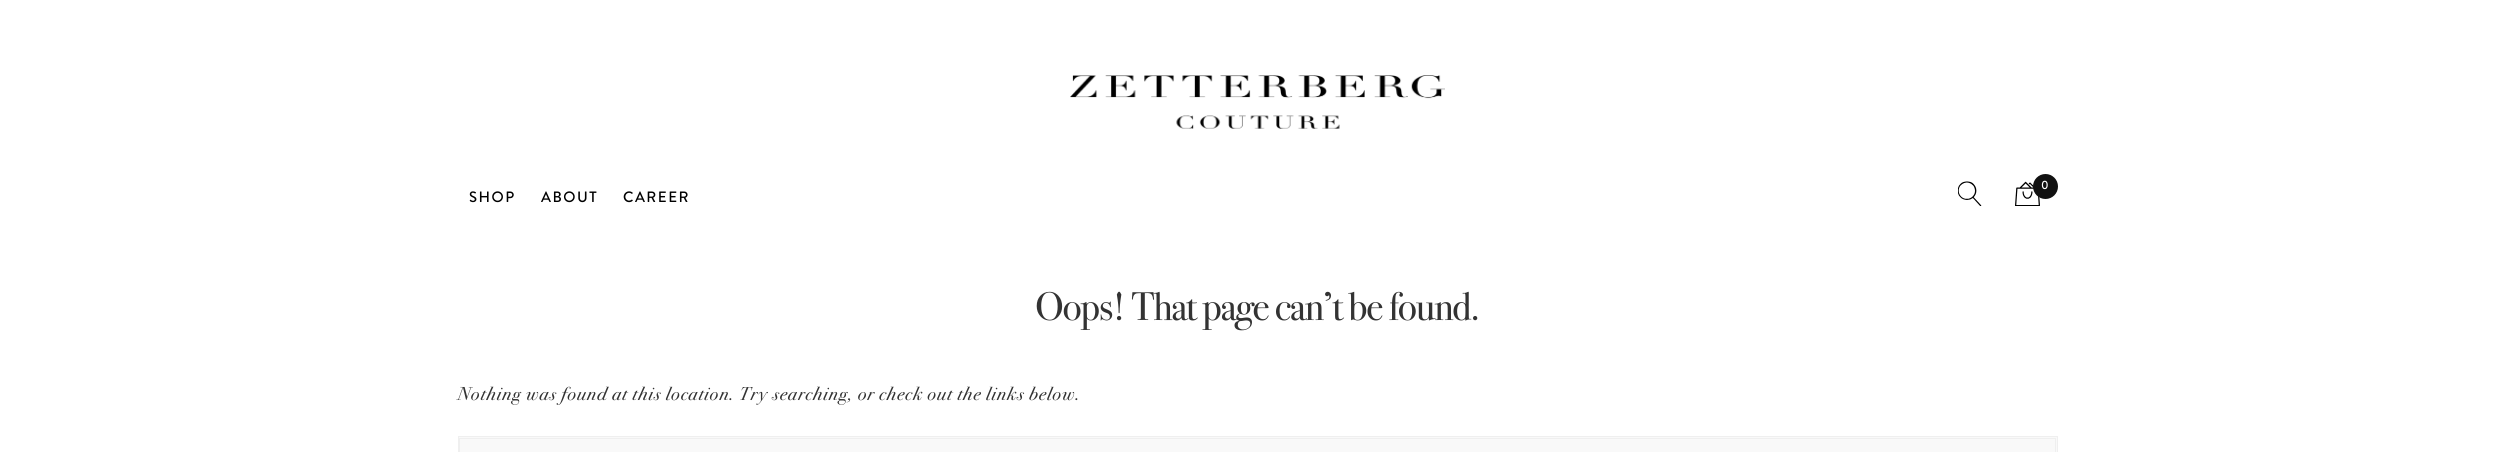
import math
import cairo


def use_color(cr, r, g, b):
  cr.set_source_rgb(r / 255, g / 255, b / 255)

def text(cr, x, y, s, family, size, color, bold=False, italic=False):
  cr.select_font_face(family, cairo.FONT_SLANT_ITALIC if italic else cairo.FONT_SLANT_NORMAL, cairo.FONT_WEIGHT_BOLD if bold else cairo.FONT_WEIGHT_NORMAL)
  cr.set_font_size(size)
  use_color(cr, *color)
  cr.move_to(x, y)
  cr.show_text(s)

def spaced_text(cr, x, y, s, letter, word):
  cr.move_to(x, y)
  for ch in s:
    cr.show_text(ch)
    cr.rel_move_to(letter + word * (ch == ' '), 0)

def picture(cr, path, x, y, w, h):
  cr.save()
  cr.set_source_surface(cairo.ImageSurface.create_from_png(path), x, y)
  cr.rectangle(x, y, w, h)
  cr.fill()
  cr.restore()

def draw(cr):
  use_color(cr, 255, 255, 255)
  cr.paint()
  picture(cr, "img_01.png", 1070, 75, 375, 54)
  picture(cr, "img_02.png", 1958, 181, 24, 25)
  picture(cr, "img_03.png", 2015, 181, 25, 25)
  use_color(cr, 17, 17, 17)
  cr.arc(2045.5, 186.5, 12.5, 0, 2 * math.pi)
  cr.fill()
  use_color(cr, 249, 249, 249)
  cr.rectangle(458.5, 436.5, 1599, 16)
  cr.fill_preserve()
  use_color(cr, 239, 239, 239)
  cr.set_line_width(1)
  cr.stroke()
  cr.rectangle(459.5, 438.5, 1596, 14)
  cr.stroke()
  text(cr, 2041, 189, "0", "Brandon Grotesque Medium", 12, (255, 255, 255))
  cr.set_font_size(15)
  use_color(cr, 0, 0, 0)
  spaced_text(cr, 469, 202, "SHOP", 1.5, 0)
  spaced_text(cr, 541, 202, "ABOUT", 1.5, 0)
  spaced_text(cr, 623, 202, "CAREER", 1.5, 0)
  cr.select_font_face("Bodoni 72")
  cr.set_font_size(40)
  use_color(cr, 51, 51, 51)
  spaced_text(cr, 1035, 320, "Oops! That page can’t be found.", -1.25, 0)
  cr.select_font_face("Bodoni 72", cairo.FONT_SLANT_ITALIC)
  cr.set_font_size(18.75)
  spaced_text(cr, 457, 400, "Nothing was found at this location. Try searching, or check out the links below.", 0.95, 0)


surface = cairo.ImageSurface(cairo.FORMAT_RGB24, 2513, 452)
cr = cairo.Context(surface)
options = cairo.FontOptions()
options.set_hint_metrics(cairo.HINT_METRICS_OFF)
options.set_hint_style(cairo.HINT_STYLE_NONE)
cr.set_font_options(options)
cr.set_miter_limit(4)
draw(cr)
surface.write_to_png("out.png")
